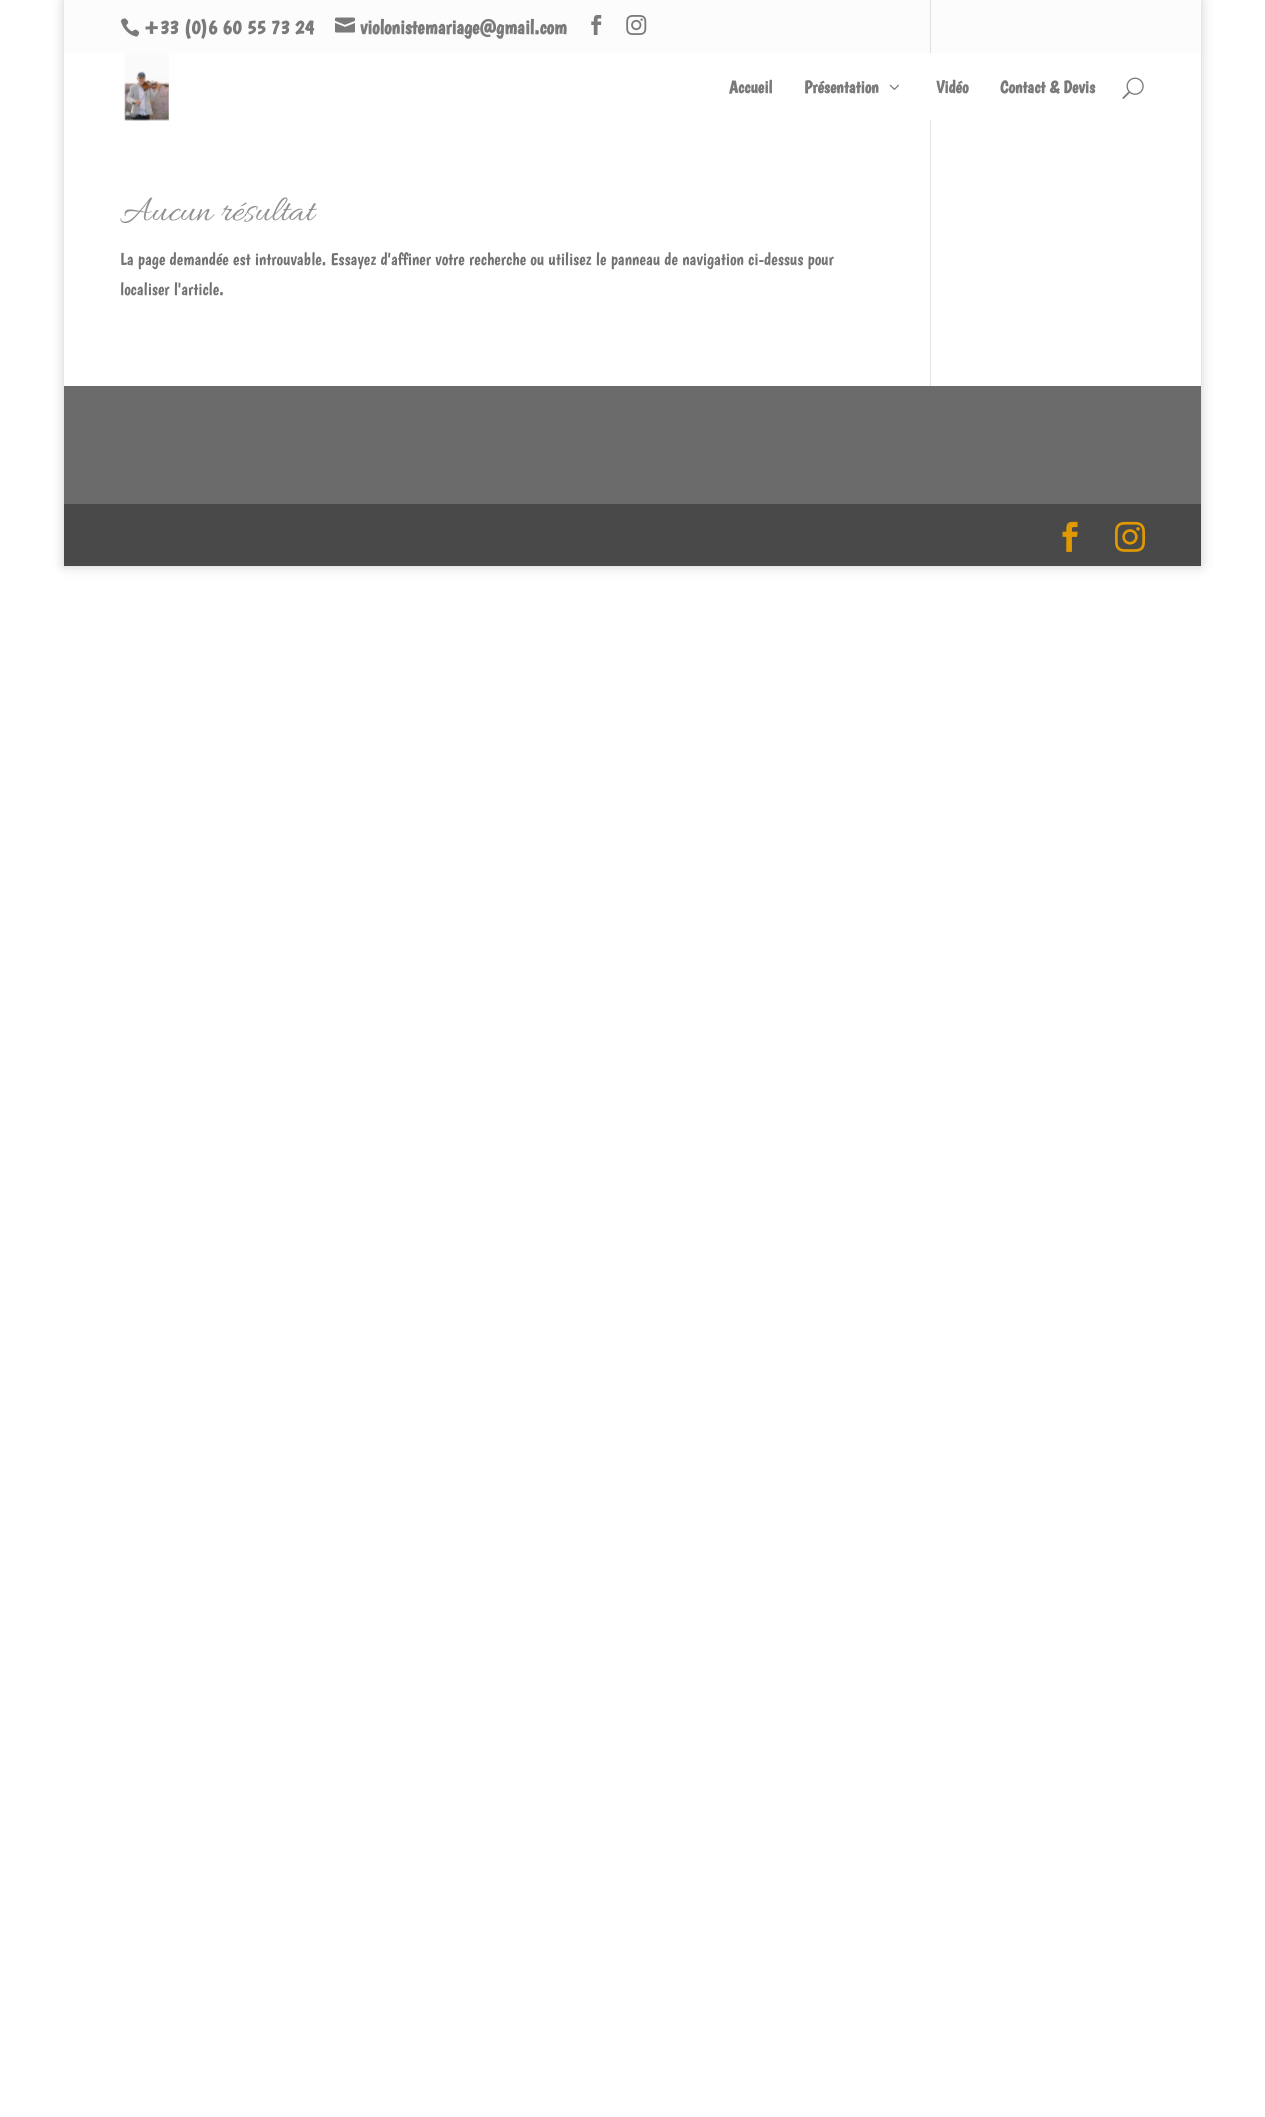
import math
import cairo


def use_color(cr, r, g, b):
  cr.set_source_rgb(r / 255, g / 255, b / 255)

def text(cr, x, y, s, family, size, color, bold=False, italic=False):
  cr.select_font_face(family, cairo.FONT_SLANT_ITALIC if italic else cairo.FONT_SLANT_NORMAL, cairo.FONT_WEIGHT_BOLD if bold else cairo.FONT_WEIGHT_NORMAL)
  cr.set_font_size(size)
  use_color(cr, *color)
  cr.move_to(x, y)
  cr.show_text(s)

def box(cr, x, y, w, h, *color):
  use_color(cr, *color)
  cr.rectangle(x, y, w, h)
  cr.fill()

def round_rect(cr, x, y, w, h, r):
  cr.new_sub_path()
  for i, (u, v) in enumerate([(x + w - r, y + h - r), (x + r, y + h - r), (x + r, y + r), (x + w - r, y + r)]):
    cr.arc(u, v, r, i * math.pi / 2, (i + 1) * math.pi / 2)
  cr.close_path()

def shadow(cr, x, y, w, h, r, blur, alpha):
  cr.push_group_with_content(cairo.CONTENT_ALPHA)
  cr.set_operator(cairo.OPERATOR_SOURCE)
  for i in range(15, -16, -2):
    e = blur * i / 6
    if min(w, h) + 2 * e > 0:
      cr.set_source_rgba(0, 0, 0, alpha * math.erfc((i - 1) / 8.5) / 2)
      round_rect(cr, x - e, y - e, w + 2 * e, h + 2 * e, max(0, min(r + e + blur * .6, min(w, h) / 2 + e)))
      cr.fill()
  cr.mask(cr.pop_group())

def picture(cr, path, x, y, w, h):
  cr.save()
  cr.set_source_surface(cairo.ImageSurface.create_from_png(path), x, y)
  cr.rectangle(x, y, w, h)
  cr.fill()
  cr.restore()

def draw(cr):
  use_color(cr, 255, 255, 255)
  cr.paint()
  box(cr, 64, 0, 1137, 53, 252, 252, 252)
  cr.save()
  cr.set_fill_rule(cairo.FILL_RULE_EVEN_ODD)
  cr.new_path()
  cr.move_to(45, 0)
  cr.line_to(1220, 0)
  cr.line_to(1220, 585)
  cr.line_to(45, 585)
  cr.close_path()
  cr.move_to(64, 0)
  cr.line_to(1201, 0)
  cr.line_to(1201, 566)
  cr.line_to(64, 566)
  cr.close_path()
  cr.clip()
  use_color(cr, 0, 0, 0)
  shadow(cr, 64, 0, 1137, 566, 0, 6, 0.2)
  cr.restore()
  picture(cr, "img_01.png", 120, 18, 20, 19)
  picture(cr, "img_02.png", 335, 17, 20, 16)
  picture(cr, "img_03.png", 591, 15, 11, 20)
  picture(cr, "img_04.png", 626, 15, 21, 20)
  picture(cr, "img_05.png", 124, 53, 45, 68)
  picture(cr, "img_06.png", 889, 84, 10, 6)
  picture(cr, "img_07.png", 1122, 77, 22, 22)
  box(cr, 930, 120, 1, 266, 226, 226, 226)
  box(cr, 930, 0, 1, 53, 224, 224, 224)
  box(cr, 64, 386, 1137, 118, 107, 107, 107)
  box(cr, 64, 504, 1137, 62, 73, 73, 73)
  picture(cr, "img_08.png", 1062, 521, 16, 31)
  picture(cr, "img_09.png", 1115, 521, 30, 31)
  text(cr, 143, 34, "+33 (0)6 60 55 73 24", "Boogaloo", 20, (122, 122, 122), bold=True)
  text(cr, 360, 34, "violonistemariage@gmail.com", "Boogaloo", 20, (122, 122, 122), bold=True)
  text(cr, 729, 93, "Accueil", "Boogaloo", 17.5, (122, 122, 122), bold=True)
  text(cr, 804, 93, "Présentation", "Boogaloo", 17.5, (122, 122, 122), bold=True)
  text(cr, 936, 93, "Vidéo", "Boogaloo", 17.5, (122, 122, 122), bold=True)
  text(cr, 1000, 93, "Contact & Devis", "Boogaloo", 17.5, (122, 122, 122), bold=True)
  text(cr, 120, 220, "Aucun résultat", "Allura", 37.5, (145, 145, 145))
  text(cr, 120, 265, "La page demandée est introuvable. Essayez d'affiner votre recherche ou utilisez le panneau de navigation ci-dessus pour", "Boogaloo", 17.5, (114, 114, 114))
  text(cr, 120, 295, "localiser l'article.", "Boogaloo", 17.5, (114, 114, 114))


surface = cairo.ImageSurface(cairo.FORMAT_RGB24, 1265, 2117)
cr = cairo.Context(surface)
options = cairo.FontOptions()
options.set_hint_metrics(cairo.HINT_METRICS_OFF)
options.set_hint_style(cairo.HINT_STYLE_NONE)
cr.set_font_options(options)
cr.set_miter_limit(4)
draw(cr)
surface.write_to_png("out.png")
